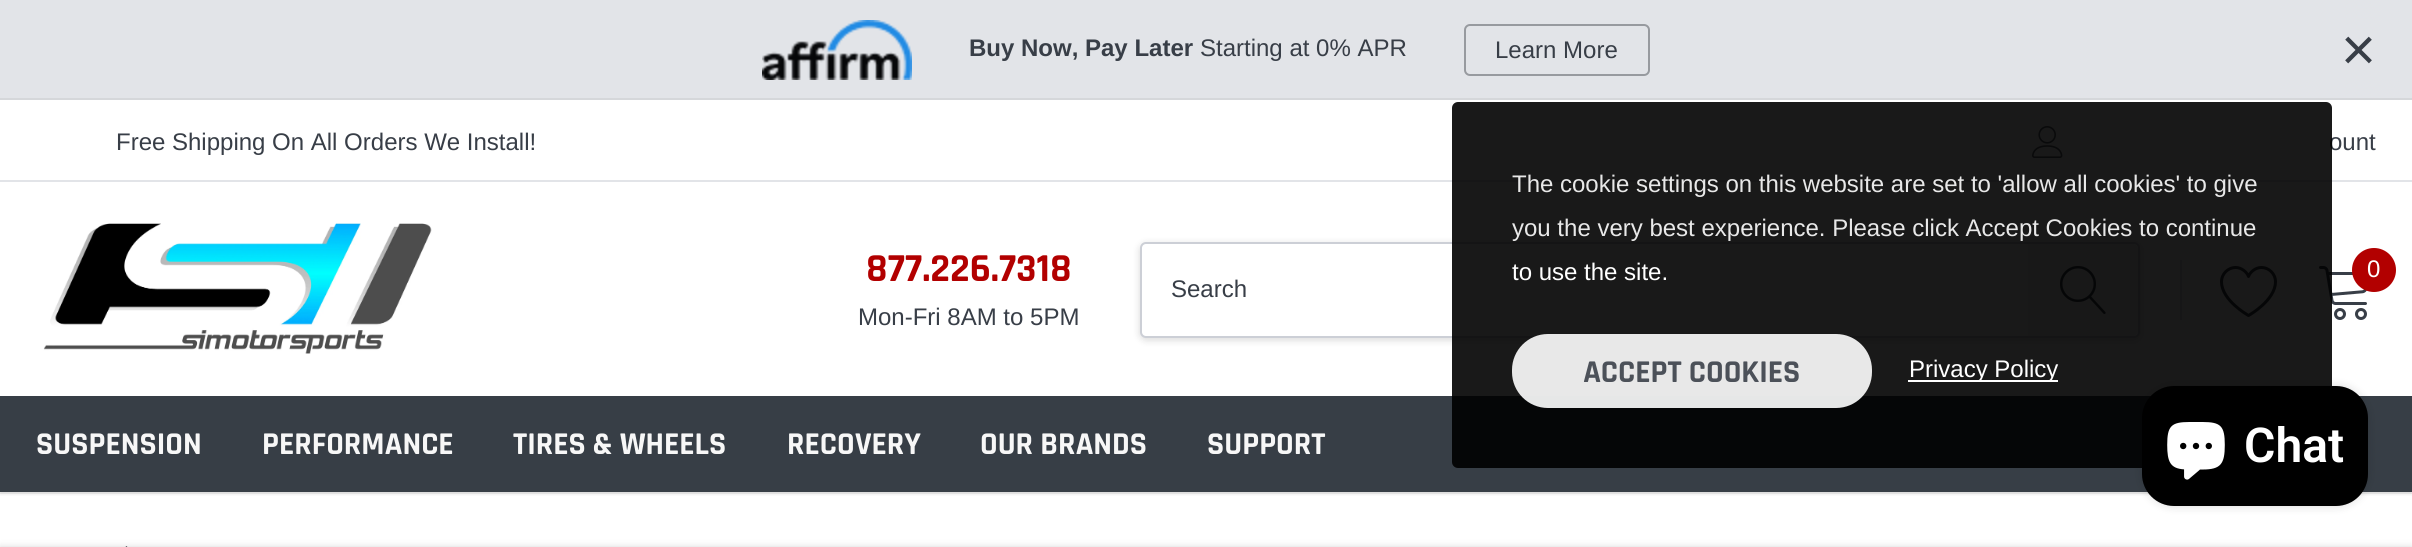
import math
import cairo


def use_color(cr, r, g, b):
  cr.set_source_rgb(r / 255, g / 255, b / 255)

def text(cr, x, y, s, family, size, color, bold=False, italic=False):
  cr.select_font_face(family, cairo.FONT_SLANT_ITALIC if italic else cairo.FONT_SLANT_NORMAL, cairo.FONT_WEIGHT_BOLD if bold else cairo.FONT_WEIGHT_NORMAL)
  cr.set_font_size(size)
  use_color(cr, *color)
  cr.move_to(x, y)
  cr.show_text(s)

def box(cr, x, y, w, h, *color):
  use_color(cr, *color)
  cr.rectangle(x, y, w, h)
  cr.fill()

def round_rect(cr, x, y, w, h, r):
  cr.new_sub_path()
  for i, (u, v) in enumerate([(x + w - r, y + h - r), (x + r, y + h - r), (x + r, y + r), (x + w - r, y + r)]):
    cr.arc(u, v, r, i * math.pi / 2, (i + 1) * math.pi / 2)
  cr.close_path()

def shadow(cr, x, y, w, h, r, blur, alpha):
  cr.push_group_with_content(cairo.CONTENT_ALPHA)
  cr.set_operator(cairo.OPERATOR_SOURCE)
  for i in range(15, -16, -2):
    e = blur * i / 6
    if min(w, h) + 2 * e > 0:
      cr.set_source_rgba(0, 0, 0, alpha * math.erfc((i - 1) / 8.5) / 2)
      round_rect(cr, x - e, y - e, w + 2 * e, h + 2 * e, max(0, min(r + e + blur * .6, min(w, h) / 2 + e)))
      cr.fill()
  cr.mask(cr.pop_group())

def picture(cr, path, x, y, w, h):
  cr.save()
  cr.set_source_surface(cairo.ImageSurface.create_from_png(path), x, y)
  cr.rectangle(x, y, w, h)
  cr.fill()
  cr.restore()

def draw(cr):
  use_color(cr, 255, 255, 255)
  cr.paint()
  box(cr, 0, 0, 2412, 100, 226, 228, 232)
  picture(cr, "img_01.png", 762, 20, 150, 60)
  round_rect(cr, 1465, 25, 184, 50, 5)
  use_color(cr, 151, 154, 159)
  cr.stroke()
  cr.save()
  cr.rectangle(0, 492, 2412, 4)
  cr.clip()
  use_color(cr, 0, 0, 0)
  shadow(cr, 0, 102, 2412, 392, 0, 2, 0.1)
  cr.restore()
  cr.rectangle(-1, 99, 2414, 394)
  cr.set_source_rgba(0, 0, 0, 0.06)
  cr.stroke()
  box(cr, 0, 180, 2412, 2, 226, 228, 232)
  picture(cr, "img_02.png", 2032, 126, 31, 32)
  picture(cr, "img_03.png", 43, 223, 389, 131)
  box(cr, 2180, 260, 2, 60, 226, 228, 232)
  picture(cr, "img_04.png", 2220, 266, 57, 51)
  picture(cr, "img_05.png", 2319, 266, 48, 54)
  use_color(cr, 178, 0, 0)
  cr.arc(2374, 270, 22, 0, 2 * math.pi)
  cr.fill()
  use_color(cr, 0, 0, 0)
  shadow(cr, 1140, 244, 1000, 96, 6, 4, 0.15)
  use_color(cr, 255, 255, 255)
  round_rect(cr, 1141, 243, 998, 94, 5)
  cr.fill_preserve()
  use_color(cr, 204, 207, 214)
  cr.stroke()
  use_color(cr, 247, 247, 247)
  cr.new_path()
  cr.move_to(2028, 244)
  cr.line_to(2132, 244)
  cr.curve_to(2135.5, 244, 2138, 246.5, 2138, 250)
  cr.line_to(2138, 330)
  cr.curve_to(2138, 333.5, 2135.5, 336, 2132, 336)
  cr.line_to(2028, 336)
  cr.close_path()
  cr.fill()
  picture(cr, "img_06.png", 2060, 266, 46, 48)
  box(cr, 0, 396, 2412, 96, 55, 62, 70)
  picture(cr, "img_08.png", 125, 546, 3, 1)
  use_color(cr, 0, 0, 0)
  shadow(cr, 0, 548, 2412, 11, 0, 4, 0.2)
  text(cr, 969, 56, "Buy Now, Pay Later", "Arimo", 24, (56, 62, 71), bold=True)
  text(cr, 1200, 56, "Starting at 0% APR", "Arimo", 24, (56, 62, 71))
  text(cr, 1495, 58, "Learn More", "Arimo", 24, (56, 62, 71))
  text(cr, 2341, 70, "×", "Arimo", 60, (56, 62, 71))
  text(cr, 116, 150, "Free Shipping On All Orders We Install!", "Arimo", 24, (56, 62, 71))
  text(cr, 2329, 150, "ount", "Arimo", 24, (56, 62, 71))
  text(cr, 866, 281, "877.226.7318", "Rajdhani", 40, (178, 0, 0), bold=True)
  text(cr, 858, 325, "Mon-Fri 8AM to 5PM", "Arimo", 24, (56, 62, 71))
  text(cr, 2367, 277, "0", "Arimo", 24, (255, 255, 255))
  text(cr, 1171, 297, "Search", "Arimo", 24, (56, 62, 71))
  text(cr, 36, 454, "SUSPENSION", "Rajdhani", 32, (247, 247, 247), bold=True)
  text(cr, 262, 454, "PERFORMANCE", "Rajdhani", 32, (247, 247, 247), bold=True)
  text(cr, 513, 454, "TIRES & WHEELS", "Rajdhani", 32, (247, 247, 247), bold=True)
  text(cr, 787, 454, "RECOVERY", "Rajdhani", 32, (247, 247, 247), bold=True)
  text(cr, 980, 454, "OUR BRANDS", "Rajdhani", 32, (247, 247, 247), bold=True)
  text(cr, 1207, 454, "SUPPORT", "Rajdhani", 32, (247, 247, 247), bold=True)
  cr.set_source_rgba(0, 0, 0, 0.9)
  round_rect(cr, 1452, 102, 880, 366, 6)
  cr.fill()
  text(cr, 1512, 192, "The cookie settings on this website are set to 'allow all cookies' to give", "Arimo", 24, (232, 232, 232))
  text(cr, 1512, 236, "you the very best experience. Please click Accept Cookies to continue", "Arimo", 24, (232, 232, 232))
  text(cr, 1512, 280, "to use the site.", "Arimo", 24, (255, 255, 255))
  cr.set_source_rgba(1, 1, 1, 0.9)
  round_rect(cr, 1512, 334, 360, 74, 36)
  cr.fill()
  text(cr, 1583, 382, "ACCEPT COOKIES", "Rajdhani", 32, (76, 81, 89), bold=True)
  box(cr, 1908, 380, 150, 2, 255, 255, 255)
  text(cr, 1909, 377, "Privacy Policy", "Arimo", 24, (255, 255, 255))
  use_color(cr, 0, 0, 0)
  shadow(cr, 2142, 386, 226, 120, 32, 5, 0.15)
  use_color(cr, 0, 0, 0)
  round_rect(cr, 2142, 386, 226, 120, 32)
  cr.fill()
  picture(cr, "img_07.png", 2167, 422, 58, 58)
  text(cr, 2244, 462, "Chat", "Roboto SemiBold", 48, (255, 255, 255))


surface = cairo.ImageSurface(cairo.FORMAT_RGB24, 2412, 547)
cr = cairo.Context(surface)
options = cairo.FontOptions()
options.set_hint_metrics(cairo.HINT_METRICS_OFF)
options.set_hint_style(cairo.HINT_STYLE_NONE)
cr.set_font_options(options)
cr.set_miter_limit(4)
draw(cr)
surface.write_to_png("out.png")
